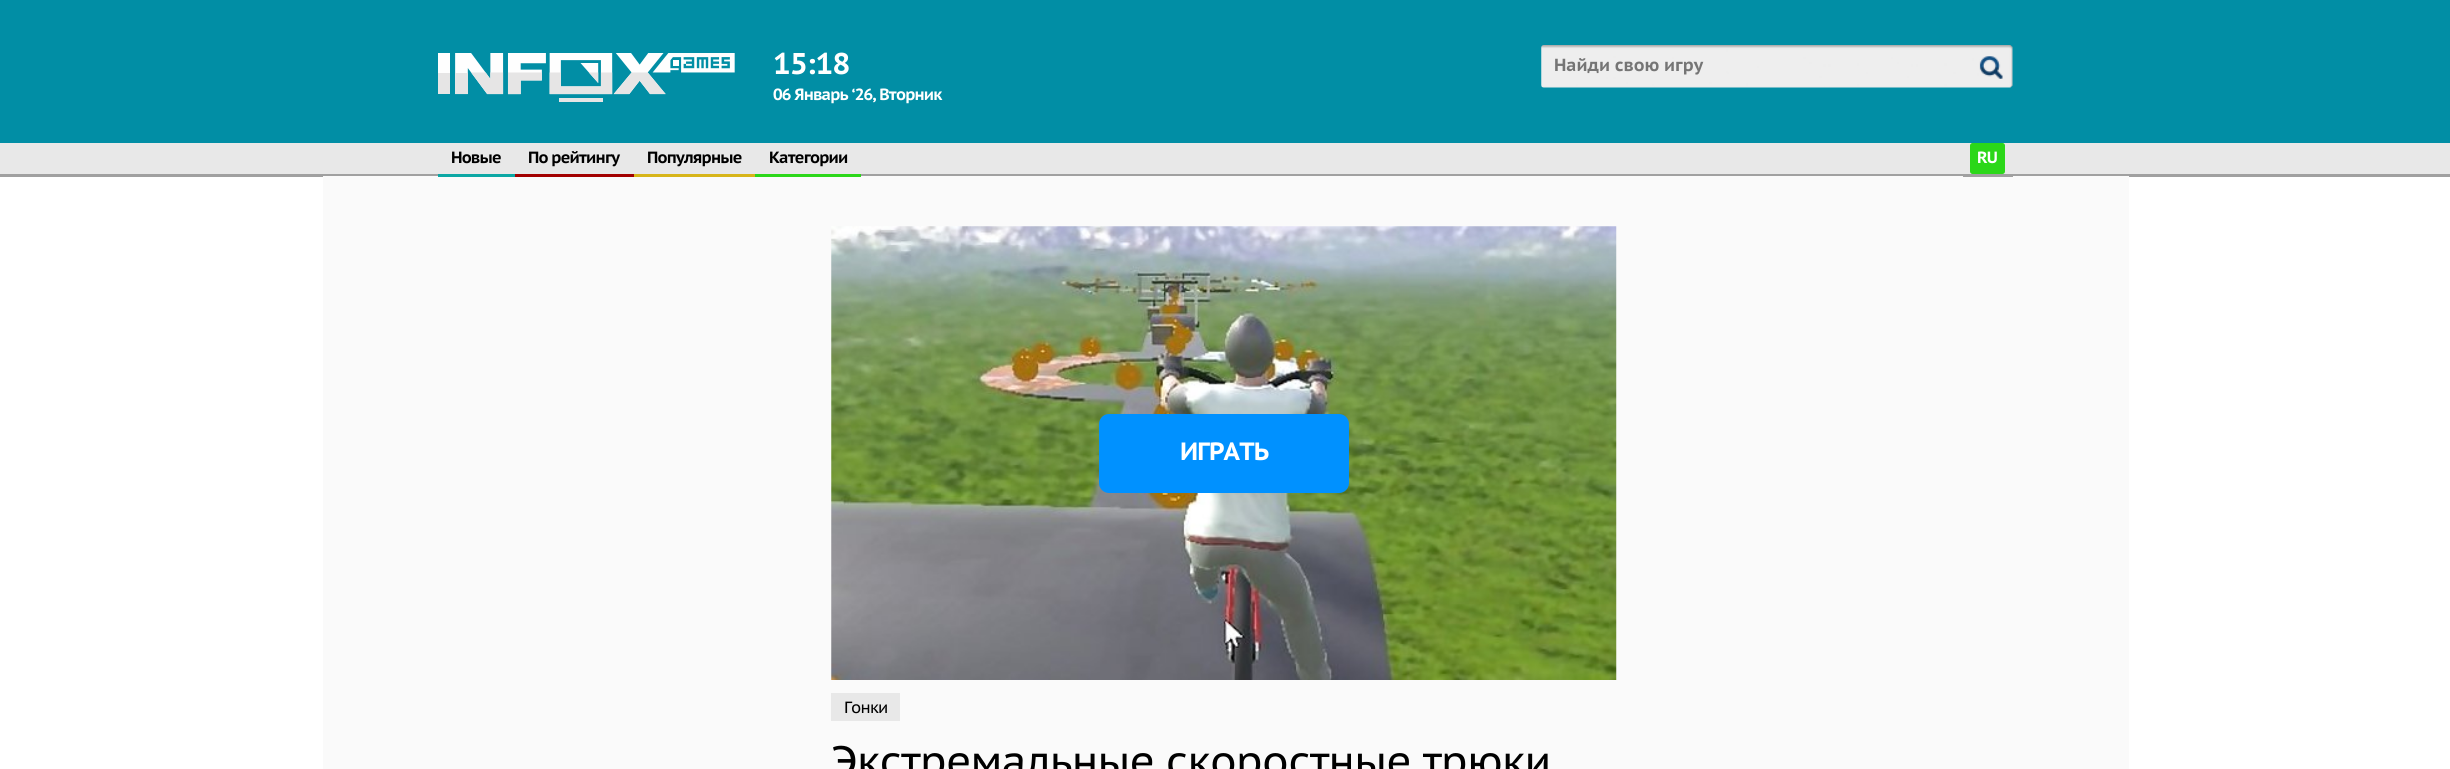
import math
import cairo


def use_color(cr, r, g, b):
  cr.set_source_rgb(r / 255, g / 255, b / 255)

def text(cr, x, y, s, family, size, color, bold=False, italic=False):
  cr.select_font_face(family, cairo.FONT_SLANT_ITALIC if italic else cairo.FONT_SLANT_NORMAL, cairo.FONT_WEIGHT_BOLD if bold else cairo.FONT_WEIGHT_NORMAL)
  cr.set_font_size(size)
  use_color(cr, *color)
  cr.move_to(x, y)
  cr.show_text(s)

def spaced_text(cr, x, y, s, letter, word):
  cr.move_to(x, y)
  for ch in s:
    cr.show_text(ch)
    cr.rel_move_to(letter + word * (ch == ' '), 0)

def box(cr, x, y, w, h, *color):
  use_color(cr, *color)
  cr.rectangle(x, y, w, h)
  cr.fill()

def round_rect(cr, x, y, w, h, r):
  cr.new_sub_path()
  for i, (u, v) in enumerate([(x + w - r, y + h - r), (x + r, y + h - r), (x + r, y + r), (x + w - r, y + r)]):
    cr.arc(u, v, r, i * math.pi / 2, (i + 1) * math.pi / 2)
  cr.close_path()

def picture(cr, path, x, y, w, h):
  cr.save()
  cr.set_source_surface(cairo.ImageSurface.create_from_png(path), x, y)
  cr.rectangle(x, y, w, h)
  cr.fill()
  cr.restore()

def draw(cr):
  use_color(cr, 255, 255, 255)
  cr.paint()
  box(cr, 0, 0, 2450, 143, 1, 142, 165)
  picture(cr, "img_01.png", 438, 53, 297, 49)
  picture(cr, "img_02.png", 1541, 45, 472, 43)
  box(cr, 0, 143, 2450, 31, 232, 232, 232)
  box(cr, 0, 174, 2450, 3, 160, 160, 160)
  box(cr, 323, 176, 1806, 593, 250, 250, 250)
  box(cr, 438, 174, 77, 3, 12, 167, 164)
  box(cr, 515, 174, 119, 3, 162, 0, 0)
  box(cr, 634, 174, 121, 3, 215, 181, 25)
  box(cr, 755, 174, 106, 3, 43, 215, 25)
  box(cr, 1963, 176, 50, 1, 160, 160, 160)
  use_color(cr, 43, 215, 25)
  round_rect(cr, 1970, 143, 35, 31, 2.5)
  cr.fill()
  picture(cr, "img_03.png", 831, 226, 786, 454)
  use_color(cr, 0, 145, 255)
  round_rect(cr, 1099, 414, 250, 79, 10)
  cr.fill()
  box(cr, 831, 693, 69, 28, 232, 232, 232)
  cr.select_font_face("PT Sans Caption", cairo.FONT_SLANT_NORMAL, cairo.FONT_WEIGHT_BOLD)
  cr.set_font_size(30)
  use_color(cr, 255, 255, 255)
  spaced_text(cr, 773, 74, "15:18", -0.8, 0)
  cr.set_font_size(16.25)
  spaced_text(cr, 773, 100, "06 Январь ‘26, Вторник", -0.8, 0)
  text(cr, 1554, 71, "Найди свою игру", "PT Sans Caption", 17.5, (117, 117, 117), bold=True)
  cr.set_font_size(16.25)
  use_color(cr, 0, 0, 0)
  spaced_text(cr, 451, 163, "Новые", -0.8, 0)
  spaced_text(cr, 528, 163, "По рейтингу", -0.8, 0)
  spaced_text(cr, 647, 163, "Популярные", -0.8, 0)
  spaced_text(cr, 769, 163, "Категории", -0.8, 0)
  use_color(cr, 255, 255, 255)
  spaced_text(cr, 1977, 163, "RU", -0.8, 0)
  cr.set_font_size(25)
  spaced_text(cr, 1180, 460, "ИГРАТЬ", -0.8, 0)
  cr.select_font_face("PT Sans Caption")
  cr.set_font_size(16.25)
  use_color(cr, 0, 0, 0)
  spaced_text(cr, 844, 713, "Гонки", -0.8, 0)
  cr.set_font_size(42.5)
  spaced_text(cr, 831, 776, "Экстремальные скоростные трюки", -0.75, 0)


surface = cairo.ImageSurface(cairo.FORMAT_RGB24, 2450, 769)
cr = cairo.Context(surface)
options = cairo.FontOptions()
options.set_hint_metrics(cairo.HINT_METRICS_OFF)
options.set_hint_style(cairo.HINT_STYLE_NONE)
cr.set_font_options(options)
cr.set_miter_limit(4)
draw(cr)
surface.write_to_png("out.png")
